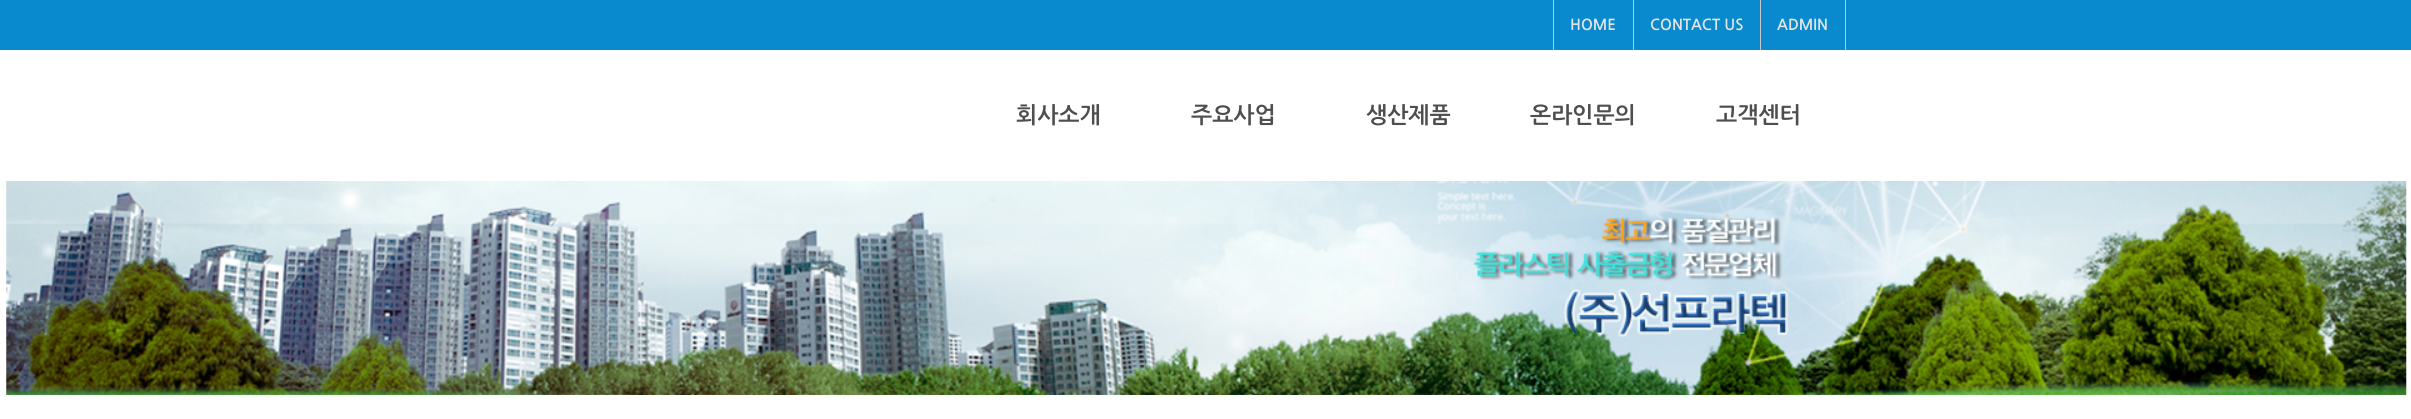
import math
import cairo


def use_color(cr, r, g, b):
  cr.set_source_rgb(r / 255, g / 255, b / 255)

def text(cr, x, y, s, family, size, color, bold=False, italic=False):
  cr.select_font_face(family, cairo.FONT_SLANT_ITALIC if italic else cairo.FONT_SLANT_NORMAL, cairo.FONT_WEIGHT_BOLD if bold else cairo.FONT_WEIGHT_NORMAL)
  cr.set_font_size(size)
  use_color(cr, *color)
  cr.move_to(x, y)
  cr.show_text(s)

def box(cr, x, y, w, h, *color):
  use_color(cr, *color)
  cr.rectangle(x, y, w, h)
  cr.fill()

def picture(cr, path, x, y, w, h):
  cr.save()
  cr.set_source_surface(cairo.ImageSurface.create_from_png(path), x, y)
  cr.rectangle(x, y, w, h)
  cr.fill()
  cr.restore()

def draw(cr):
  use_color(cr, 255, 255, 255)
  cr.paint()
  box(cr, 0, 0, 2411, 50, 9, 138, 206)
  box(cr, 1633, 0, 1, 50, 199, 199, 199)
  box(cr, 1553, 0, 1, 50, 199, 199, 199)
  box(cr, 1760, 0, 1, 50, 199, 199, 199)
  box(cr, 1845, 0, 1, 50, 199, 199, 199)
  picture(cr, "img_01.png", 6, 181, 2401, 214)
  text(cr, 1570, 30, "HOME", "NanumGothic", 15, (229, 229, 229), bold=True)
  text(cr, 1650, 30, "CONTACT US", "NanumGothic", 15, (229, 229, 229), bold=True)
  text(cr, 1777, 30, "ADMIN", "NanumGothic", 15, (229, 229, 229), bold=True)
  text(cr, 1016, 123, "회사소개", "NanumGothic", 22.5, (78, 78, 78), bold=True)
  text(cr, 1191, 123, "주요사업", "NanumGothic", 22.5, (78, 78, 78), bold=True)
  text(cr, 1366, 123, "생산제품", "NanumGothic", 22.5, (78, 78, 78), bold=True)
  text(cr, 1530, 123, "온라인문의", "NanumGothic", 22.5, (78, 78, 78), bold=True)
  text(cr, 1716, 123, "고객센터", "NanumGothic", 22.5, (78, 78, 78), bold=True)


surface = cairo.ImageSurface(cairo.FORMAT_RGB24, 2411, 419)
cr = cairo.Context(surface)
options = cairo.FontOptions()
options.set_hint_metrics(cairo.HINT_METRICS_OFF)
options.set_hint_style(cairo.HINT_STYLE_NONE)
cr.set_font_options(options)
cr.set_miter_limit(4)
draw(cr)
surface.write_to_png("out.png")
